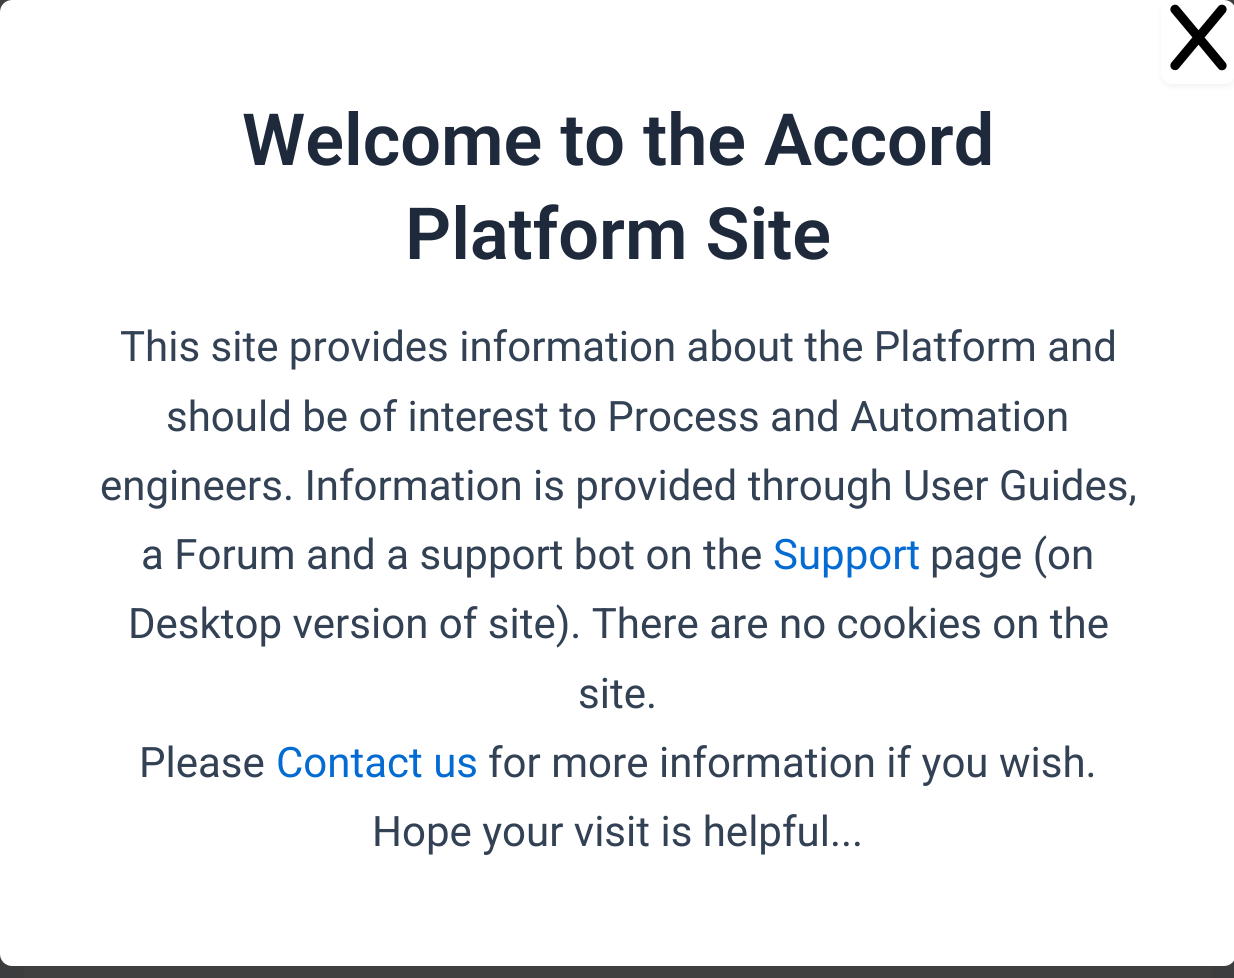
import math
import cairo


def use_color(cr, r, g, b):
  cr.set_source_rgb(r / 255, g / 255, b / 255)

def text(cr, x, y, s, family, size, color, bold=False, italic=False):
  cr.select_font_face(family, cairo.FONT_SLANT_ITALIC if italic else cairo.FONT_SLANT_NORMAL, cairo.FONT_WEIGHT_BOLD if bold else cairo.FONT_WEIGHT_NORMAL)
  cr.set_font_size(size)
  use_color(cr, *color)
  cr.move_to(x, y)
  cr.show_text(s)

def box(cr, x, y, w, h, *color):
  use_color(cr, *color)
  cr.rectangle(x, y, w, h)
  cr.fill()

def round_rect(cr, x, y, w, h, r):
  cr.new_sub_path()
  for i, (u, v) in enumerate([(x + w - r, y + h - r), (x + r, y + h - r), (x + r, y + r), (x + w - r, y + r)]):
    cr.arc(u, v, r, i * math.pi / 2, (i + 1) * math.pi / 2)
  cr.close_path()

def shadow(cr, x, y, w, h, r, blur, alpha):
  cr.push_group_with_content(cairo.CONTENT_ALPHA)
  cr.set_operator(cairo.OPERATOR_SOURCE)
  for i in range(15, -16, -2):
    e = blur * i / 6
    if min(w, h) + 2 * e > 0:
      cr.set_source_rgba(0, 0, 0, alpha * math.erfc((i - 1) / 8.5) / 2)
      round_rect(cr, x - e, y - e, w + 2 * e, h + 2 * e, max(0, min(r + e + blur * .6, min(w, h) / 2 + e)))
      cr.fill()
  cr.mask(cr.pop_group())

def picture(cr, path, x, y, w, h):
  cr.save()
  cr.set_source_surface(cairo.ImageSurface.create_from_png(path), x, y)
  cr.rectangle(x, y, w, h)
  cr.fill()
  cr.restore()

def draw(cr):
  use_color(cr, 60, 61, 63)
  cr.paint()
  box(cr, 0, 0, 1234, 12, 64, 64, 64)
  box(cr, 24, 966, 1188, 12, 64, 64, 64)
  use_color(cr, 255, 255, 255)
  round_rect(cr, 0, 0, 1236, 966, 12)
  cr.fill()
  cr.save()
  cr.set_fill_rule(cairo.FILL_RULE_EVEN_ODD)
  cr.new_path()
  cr.move_to(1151, 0)
  cr.line_to(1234, 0)
  cr.line_to(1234, 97)
  cr.line_to(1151, 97)
  cr.close_path()
  cr.move_to(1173, 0)
  cr.line_to(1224, 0)
  cr.curve_to(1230.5, 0, 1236, 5.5, 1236, 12)
  cr.line_to(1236, 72)
  cr.curve_to(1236, 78.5, 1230.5, 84, 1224, 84)
  cr.line_to(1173, 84)
  cr.curve_to(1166.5, 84, 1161, 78.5, 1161, 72)
  cr.line_to(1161, 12)
  cr.curve_to(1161, 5.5, 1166.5, 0, 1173, 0)
  cr.close_path()
  cr.clip()
  use_color(cr, 0, 0, 0)
  shadow(cr, 1161, 3, 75, 84, 12, 3, 0.05)
  cr.restore()
  picture(cr, "img_01.png", 1170, 4, 57, 67)
  text(cr, 242, 165, "Welcome to the Accord", "Roboto SemiBold", 72, (30, 41, 59))
  text(cr, 405, 259, "Platform Site", "Roboto SemiBold", 72, (30, 41, 59))
  text(cr, 120, 361, "This site provides information about the Platform and", "Roboto", 42, (51, 65, 85))
  text(cr, 166, 431, "should be of interest to Process and Automation", "Roboto", 42, (51, 65, 85))
  text(cr, 100, 500, "engineers. Information is provided through User Guides,", "Roboto", 42, (51, 65, 85))
  text(cr, 141, 569, "a Forum and a support bot on the", "Roboto", 42, (51, 65, 85))
  text(cr, 773, 569, "Support", "Roboto", 42, (4, 107, 210))
  text(cr, 930, 569, "page (on", "Roboto", 42, (51, 65, 85))
  text(cr, 128, 638, "Desktop version of site). There are no cookies on the", "Roboto", 42, (51, 65, 85))
  text(cr, 578, 708, "site.", "Roboto", 42, (51, 65, 85))
  text(cr, 139, 777, "Please", "Roboto", 42, (51, 65, 85))
  text(cr, 276, 777, "Contact us", "Roboto", 42, (4, 107, 210))
  text(cr, 488, 777, "for more information if you wish.", "Roboto", 42, (51, 65, 85))
  text(cr, 372, 846, "Hope your visit is helpful...", "Roboto", 42, (51, 65, 85))


surface = cairo.ImageSurface(cairo.FORMAT_RGB24, 1234, 978)
cr = cairo.Context(surface)
options = cairo.FontOptions()
options.set_hint_metrics(cairo.HINT_METRICS_OFF)
options.set_hint_style(cairo.HINT_STYLE_NONE)
cr.set_font_options(options)
cr.set_miter_limit(4)
draw(cr)
surface.write_to_png("out.png")
